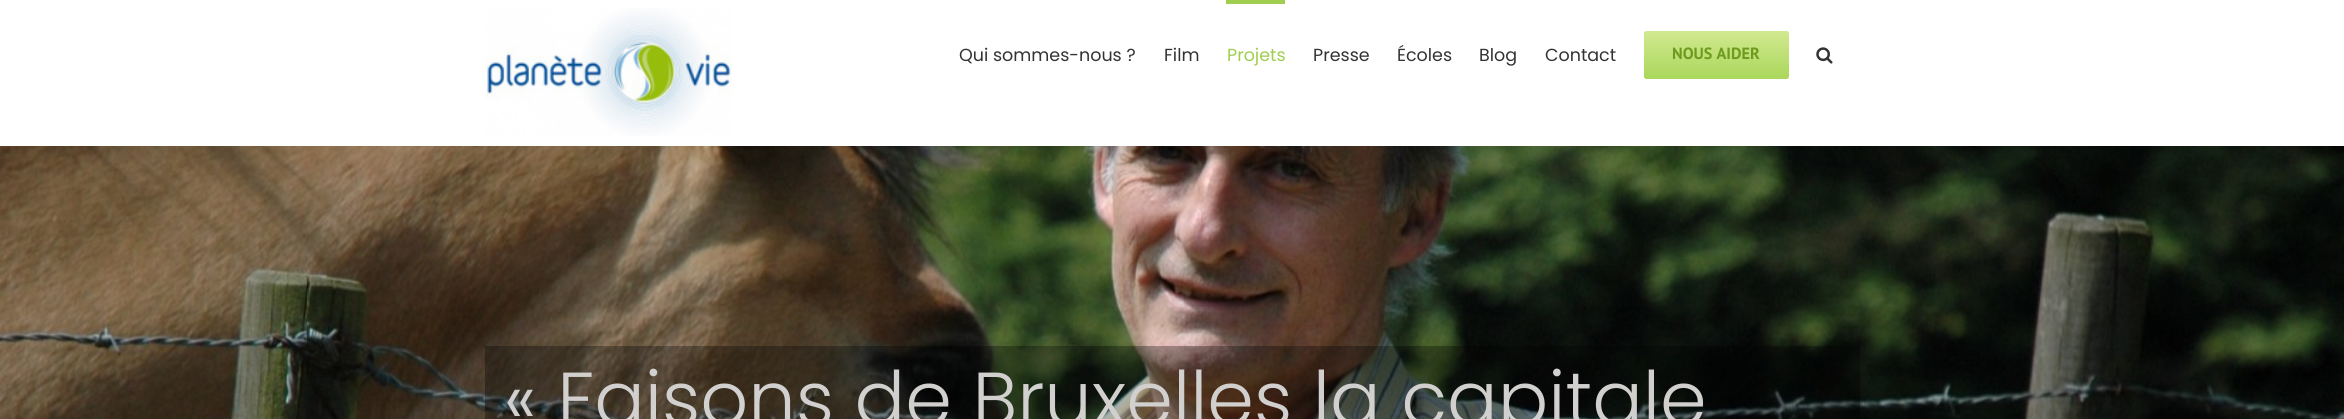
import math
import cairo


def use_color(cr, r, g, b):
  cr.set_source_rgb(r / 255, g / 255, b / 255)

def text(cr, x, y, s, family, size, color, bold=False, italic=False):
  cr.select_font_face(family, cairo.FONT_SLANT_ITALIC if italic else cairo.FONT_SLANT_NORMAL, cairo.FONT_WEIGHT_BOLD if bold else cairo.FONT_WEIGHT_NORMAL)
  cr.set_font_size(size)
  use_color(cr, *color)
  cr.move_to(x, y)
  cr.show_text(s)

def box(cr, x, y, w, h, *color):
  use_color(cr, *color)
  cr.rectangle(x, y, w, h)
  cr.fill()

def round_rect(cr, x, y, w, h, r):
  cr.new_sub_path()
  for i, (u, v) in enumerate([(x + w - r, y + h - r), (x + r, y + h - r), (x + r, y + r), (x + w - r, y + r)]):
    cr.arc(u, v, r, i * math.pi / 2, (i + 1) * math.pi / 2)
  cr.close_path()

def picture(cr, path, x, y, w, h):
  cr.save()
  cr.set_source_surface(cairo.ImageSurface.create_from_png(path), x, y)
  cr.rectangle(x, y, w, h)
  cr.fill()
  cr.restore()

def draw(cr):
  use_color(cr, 255, 255, 255)
  cr.paint()
  picture(cr, "img_01.png", 485, 8, 247, 128)
  box(cr, 1226, 0, 59, 4, 160, 206, 78)
  gradient = cairo.LinearGradient(1716, 31, 1716, 79)
  gradient.add_color_stop_rgba(0, 0.82, 0.914, 0.565, 1)
  gradient.add_color_stop_rgba(1, 0.667, 0.843, 0.357, 1)
  cr.set_source(gradient)
  round_rect(cr, 1644, 31, 145, 48, 2.5)
  cr.fill()
  picture(cr, "img_02.png", 1816, 47, 17, 17)
  picture(cr, "img_03.png", 0, 146, 2344, 273)
  cr.set_source_rgba(0, 0, 0, 0.31)
  cr.rectangle(485, 346, 1375, 73)
  cr.fill()
  text(cr, 959, 61, "Qui sommes-nous ?", "Poppins", 17.5, (51, 51, 51))
  text(cr, 1164, 61, "Film", "Poppins", 17.5, (51, 51, 51))
  text(cr, 1227, 61, "Projets", "Poppins", 17.5, (160, 206, 78))
  text(cr, 1313, 61, "Presse", "Poppins", 17.5, (51, 51, 51))
  text(cr, 1397, 61, "Écoles", "Poppins", 17.5, (51, 51, 51))
  text(cr, 1479, 61, "Blog", "Poppins", 17.5, (51, 51, 51))
  text(cr, 1545, 61, "Contact", "Poppins", 17.5, (51, 51, 51))
  text(cr, 1672, 59, "NOUS AIDER", "PT Sans", 16.25, (110, 154, 31), bold=True)
  text(cr, 504, 425, "« Faisons de Bruxelles la capitale", "Poppins Light", 75, (209, 208, 206))


surface = cairo.ImageSurface(cairo.FORMAT_RGB24, 2344, 419)
cr = cairo.Context(surface)
options = cairo.FontOptions()
options.set_hint_metrics(cairo.HINT_METRICS_OFF)
options.set_hint_style(cairo.HINT_STYLE_NONE)
cr.set_font_options(options)
cr.set_miter_limit(4)
draw(cr)
surface.write_to_png("out.png")
